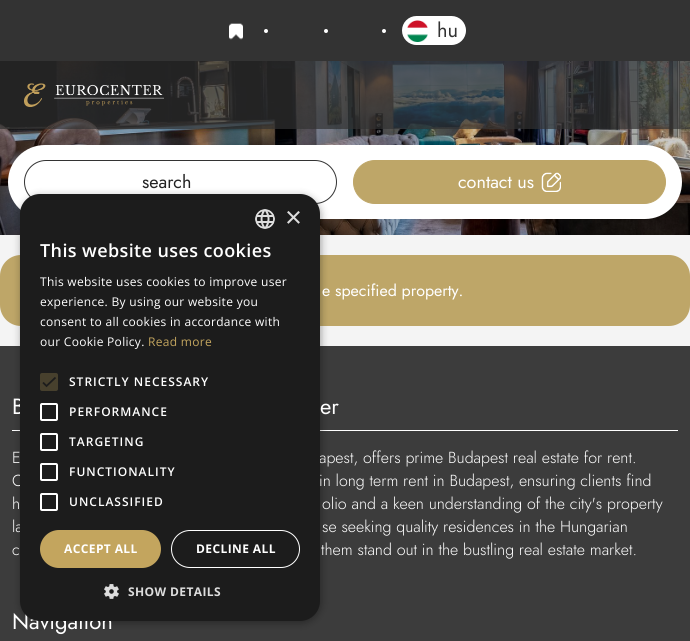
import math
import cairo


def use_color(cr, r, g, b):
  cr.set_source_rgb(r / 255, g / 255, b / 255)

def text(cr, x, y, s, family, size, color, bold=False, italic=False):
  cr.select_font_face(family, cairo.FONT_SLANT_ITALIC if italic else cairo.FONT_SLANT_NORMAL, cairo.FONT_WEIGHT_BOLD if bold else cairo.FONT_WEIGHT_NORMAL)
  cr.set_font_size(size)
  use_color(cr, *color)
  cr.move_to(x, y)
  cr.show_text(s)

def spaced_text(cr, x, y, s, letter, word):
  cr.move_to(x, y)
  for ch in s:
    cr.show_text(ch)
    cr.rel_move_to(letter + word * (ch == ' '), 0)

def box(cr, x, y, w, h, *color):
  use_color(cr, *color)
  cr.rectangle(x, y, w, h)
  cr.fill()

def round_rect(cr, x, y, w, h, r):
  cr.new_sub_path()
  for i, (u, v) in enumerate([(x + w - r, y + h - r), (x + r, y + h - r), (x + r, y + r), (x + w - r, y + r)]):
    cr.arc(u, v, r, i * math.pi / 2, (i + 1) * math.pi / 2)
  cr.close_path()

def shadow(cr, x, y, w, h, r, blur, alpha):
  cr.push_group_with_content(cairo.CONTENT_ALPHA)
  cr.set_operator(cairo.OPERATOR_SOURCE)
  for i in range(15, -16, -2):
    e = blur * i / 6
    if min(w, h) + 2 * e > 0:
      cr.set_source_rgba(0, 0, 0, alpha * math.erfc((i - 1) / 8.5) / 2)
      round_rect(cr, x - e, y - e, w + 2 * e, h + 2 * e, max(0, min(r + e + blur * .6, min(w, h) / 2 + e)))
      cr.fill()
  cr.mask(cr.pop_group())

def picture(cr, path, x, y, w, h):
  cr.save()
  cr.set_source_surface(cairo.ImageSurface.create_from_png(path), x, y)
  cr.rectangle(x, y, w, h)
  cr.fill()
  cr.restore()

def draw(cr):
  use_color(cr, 244, 244, 244)
  cr.paint()
  box(cr, 0, 0, 690, 61, 51, 51, 51)
  picture(cr, "img_01.png", 229, 23, 14, 17)
  use_color(cr, 255, 255, 255)
  cr.arc(266, 31, 2, 0, 2 * math.pi)
  cr.fill()
  cr.arc(326, 31, 2, 0, 2 * math.pi)
  cr.fill()
  cr.arc(384, 31, 2, 0, 2 * math.pi)
  cr.fill()
  round_rect(cr, 402, 16, 64, 29, 14.5)
  cr.fill()
  picture(cr, "img_02.png", 407, 20, 21, 22)
  picture(cr, "img_04.png", 0, 61, 690, 174)
  cr.set_source_rgba(0.2, 0.2, 0.2, 0.7)
  cr.rectangle(0, 61, 690, 68)
  cr.fill()
  picture(cr, "img_03.png", 24, 83, 140, 24)
  use_color(cr, 255, 255, 255)
  round_rect(cr, 8, 145, 674, 74, 37)
  cr.fill()
  round_rect(cr, 24.5, 160.5, 312, 43, 21.5)
  use_color(cr, 51, 51, 51)
  cr.set_line_width(1)
  cr.stroke()
  use_color(cr, 190, 166, 104)
  round_rect(cr, 353.5, 160.5, 312, 43, 21.5)
  cr.fill_preserve()
  cr.stroke()
  picture(cr, "img_05.png", 541, 172, 20, 20)
  round_rect(cr, 0, 255, 690, 71, 21)
  cr.fill()
  box(cr, 0, 346, 690, 295, 60, 60, 60)
  box(cr, 12, 430, 666, 1, 255, 255, 255)
  use_color(cr, 0, 0, 0)
  shadow(cr, 21, 196, 300, 427, 20, 4, 0.35)
  text(cr, 437, 37, "hu", "Jost", 20, (51, 51, 51))
  text(cr, 142, 188, "search", "Jost", 18, (34, 34, 34))
  text(cr, 458, 188, "contact us", "Jost", 18, (255, 255, 255))
  text(cr, 322, 296, "e specified property.", "Jost", 16, (255, 255, 255))
  text(cr, 12, 414, "B", "Jost", 22, (255, 255, 255))
  text(cr, 320, 414, "er", "Jost", 22, (255, 255, 255))
  text(cr, 12, 463, "E", "Jost Light", 16, (255, 255, 255))
  text(cr, 319, 463, "apest, offers prime Budapest real estate for rent.", "Jost Light", 16, (255, 255, 255))
  text(cr, 12, 486, "C", "Jost Light", 16, (255, 255, 255))
  text(cr, 319, 486, "in long term rent in Budapest, ensuring clients find", "Jost Light", 16, (255, 255, 255))
  text(cr, 12, 509, "h", "Jost Light", 16, (255, 255, 255))
  text(cr, 322, 509, "olio and a keen understanding of the city's property", "Jost Light", 16, (255, 255, 255))
  text(cr, 12, 532, "la", "Jost Light", 16, (255, 255, 255))
  text(cr, 322, 532, "se seeking quality residences in the Hungarian", "Jost Light", 16, (255, 255, 255))
  text(cr, 12, 555, "c", "Jost Light", 16, (255, 255, 255))
  text(cr, 321, 555, "them stand out in the bustling real estate market.", "Jost Light", 16, (255, 255, 255))
  text(cr, 12, 629, "Navigation", "Jost", 22, (255, 255, 255))
  use_color(cr, 28, 28, 28)
  round_rect(cr, 20, 194, 300, 427, 20)
  cr.fill()
  text(cr, 285, 227, "×", "Liberation Sans", 29, (221, 221, 221))
  picture(cr, "img_07.png", 104, 584, 15, 15)
  cr.select_font_face("Open Sans", cairo.FONT_SLANT_NORMAL, cairo.FONT_WEIGHT_BOLD)
  cr.set_font_size(12)
  spaced_text(cr, 128, 596, "SHOW DETAILS", 0.4, 0)
  round_rect(cr, 41, 494, 16, 16, 1)
  use_color(cr, 255, 255, 255)
  cr.set_line_width(2)
  cr.stroke()
  round_rect(cr, 41, 464, 16, 16, 1)
  cr.stroke()
  round_rect(cr, 41, 434, 16, 16, 1)
  cr.stroke()
  round_rect(cr, 41, 404, 16, 16, 1)
  cr.stroke()
  use_color(cr, 71, 64, 45)
  round_rect(cr, 40, 373, 18, 18, 2)
  cr.fill()
  cr.new_path()
  cr.move_to(43, 382.5)
  cr.line_to(46.5, 386)
  cr.line_to(55.5, 377.5)
  use_color(cr, 28, 28, 28)
  cr.set_line_width(1.8)
  cr.stroke()
  picture(cr, "img_06.png", 255, 209, 20, 20)
  round_rect(cr, 171.5, 530.5, 128, 37, 18.5)
  use_color(cr, 255, 255, 255)
  cr.set_line_width(1)
  cr.stroke()
  spaced_text(cr, 196, 553, "DECLINE ALL", 0.4, 0)
  use_color(cr, 195, 165, 94)
  round_rect(cr, 40, 530, 121, 38, 19)
  cr.fill()
  use_color(cr, 255, 255, 255)
  spaced_text(cr, 64, 553, "ACCEPT ALL", 0.4, 0)
  cr.select_font_face("Open Sans SemiBold")
  spaced_text(cr, 69, 506, "UNCLASSIFIED", 1, 0)
  spaced_text(cr, 69, 476, "FUNCTIONALITY", 1, 0)
  spaced_text(cr, 69, 446, "TARGETING", 1, 0)
  spaced_text(cr, 69, 416, "PERFORMANCE", 1, 0)
  spaced_text(cr, 69, 386, "STRICTLY NECESSARY", 1, 0)
  cr.select_font_face("Open Sans")
  use_color(cr, 195, 165, 94)
  spaced_text(cr, 148, 346, "Read more", 0.3, 0)
  use_color(cr, 255, 255, 255)
  spaced_text(cr, 40, 346, "our Cookie Policy.", 0.3, 0)
  spaced_text(cr, 40, 326, "consent to all cookies in accordance with", 0.3, 0)
  spaced_text(cr, 40, 306, "experience. By using our website you", 0.3, 0)
  spaced_text(cr, 40, 286, "This website uses cookies to improve user", 0.3, 0)
  cr.select_font_face("Open Sans SemiBold")
  cr.set_font_size(18)
  spaced_text(cr, 40, 257, "This website uses cookies", 0.4, 0)


surface = cairo.ImageSurface(cairo.FORMAT_RGB24, 690, 641)
cr = cairo.Context(surface)
options = cairo.FontOptions()
options.set_hint_metrics(cairo.HINT_METRICS_OFF)
options.set_hint_style(cairo.HINT_STYLE_NONE)
cr.set_font_options(options)
cr.set_miter_limit(4)
draw(cr)
surface.write_to_png("out.png")
